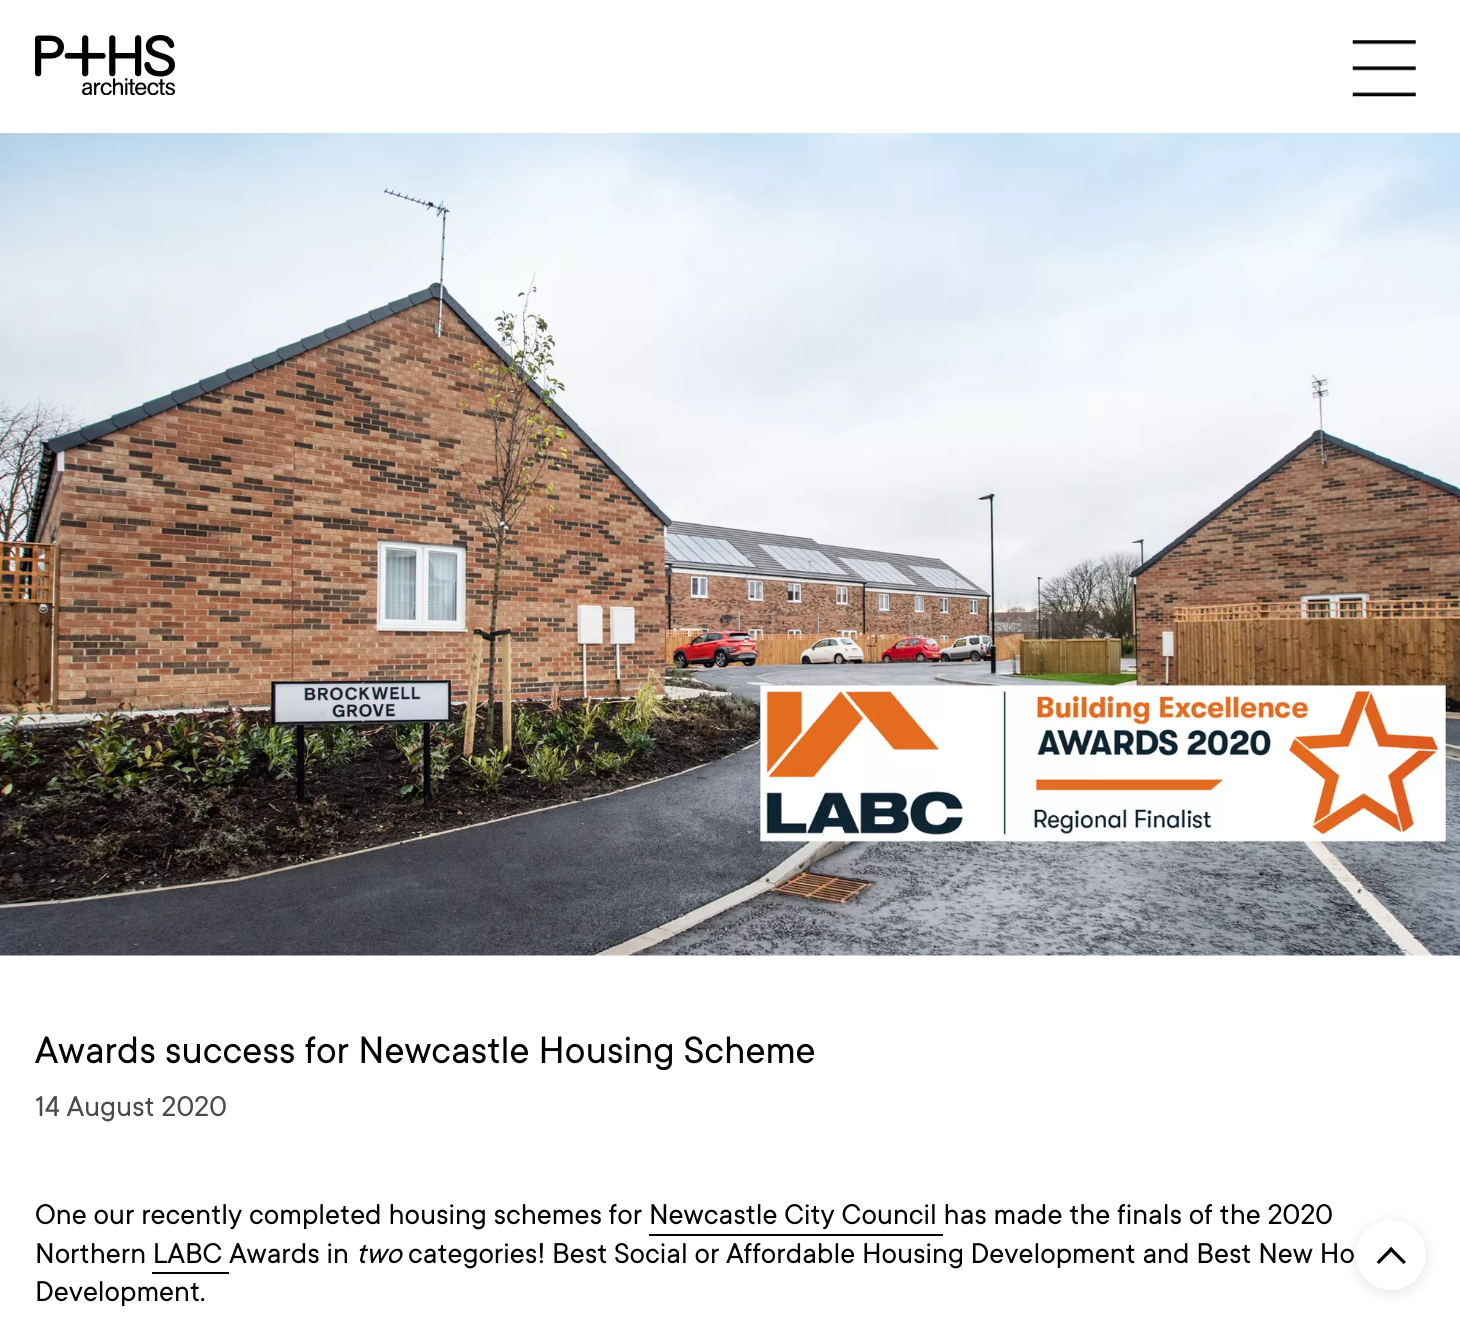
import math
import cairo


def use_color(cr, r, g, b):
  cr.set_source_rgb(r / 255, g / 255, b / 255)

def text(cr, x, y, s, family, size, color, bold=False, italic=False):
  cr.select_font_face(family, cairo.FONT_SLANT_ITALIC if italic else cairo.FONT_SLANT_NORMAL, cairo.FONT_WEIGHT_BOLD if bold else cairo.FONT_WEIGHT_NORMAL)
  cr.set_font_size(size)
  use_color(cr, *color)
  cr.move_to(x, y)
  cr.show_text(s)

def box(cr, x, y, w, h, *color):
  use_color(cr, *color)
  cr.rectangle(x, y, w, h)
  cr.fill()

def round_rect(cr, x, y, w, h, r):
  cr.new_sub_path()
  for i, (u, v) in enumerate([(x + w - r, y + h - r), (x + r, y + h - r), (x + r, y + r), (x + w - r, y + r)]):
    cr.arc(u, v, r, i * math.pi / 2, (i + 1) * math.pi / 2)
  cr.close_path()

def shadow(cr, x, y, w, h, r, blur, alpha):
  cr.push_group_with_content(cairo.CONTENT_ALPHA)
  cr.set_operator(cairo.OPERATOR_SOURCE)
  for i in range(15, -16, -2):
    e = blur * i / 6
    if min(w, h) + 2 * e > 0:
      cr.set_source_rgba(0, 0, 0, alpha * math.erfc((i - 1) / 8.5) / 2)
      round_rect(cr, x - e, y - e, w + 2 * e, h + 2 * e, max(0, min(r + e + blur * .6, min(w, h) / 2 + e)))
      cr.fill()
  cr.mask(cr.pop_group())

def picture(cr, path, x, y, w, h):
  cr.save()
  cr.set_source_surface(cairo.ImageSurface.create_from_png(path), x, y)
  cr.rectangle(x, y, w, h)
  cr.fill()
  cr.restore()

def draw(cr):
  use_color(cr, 255, 255, 255)
  cr.paint()
  picture(cr, "img_01.png", 35, 35, 140, 60)
  picture(cr, "img_02.png", 1352, 40, 64, 57)
  picture(cr, "img_03.png", 0, 133, 1460, 823)
  box(cr, 649, 1234, 294, 2, 0, 0, 0)
  box(cr, 152, 1272, 77, 2, 0, 0, 0)
  use_color(cr, 0, 0, 0)
  shadow(cr, 1356, 1223, 70, 70, 35, 7, 0.1)
  use_color(cr, 255, 255, 255)
  cr.arc(1391, 1255, 35, 0, 2 * math.pi)
  cr.fill()
  use_color(cr, 0, 0, 0)
  cr.new_path()
  cr.move_to(1391, 1247)
  cr.line_to(1406, 1262)
  cr.line_to(1403.5, 1264)
  cr.line_to(1389, 1249.5)
  cr.close_path()
  cr.fill()
  cr.new_path()
  cr.move_to(1391, 1247)
  cr.line_to(1393.5, 1249.5)
  cr.line_to(1379, 1264)
  cr.line_to(1376.5, 1262)
  cr.close_path()
  cr.fill()
  text(cr, 35, 1063, "Awards success for Newcastle Housing Scheme", "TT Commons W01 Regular", 42, (0, 0, 0))
  text(cr, 35, 1116, "14 August 2020", "TT Commons W01 Regular", 31.5, (74, 74, 74))
  text(cr, 35, 1224, "One our recently completed housing schemes for Newcastle City Council has made the finals of the 2020", "TT Commons W01 Regular", 31.5, (0, 0, 0))
  text(cr, 35, 1263, "Northern LABC Awards in", "TT Commons W01 Regular", 31.5, (0, 0, 0))
  text(cr, 356, 1263, "two", "TT Commons W01 Regular", 31.5, (0, 0, 0), italic=True)
  text(cr, 408, 1263, "categories! Best Social or Affordable Housing Development and Best New Ho", "TT Commons W01 Regular", 31.5, (0, 0, 0))
  text(cr, 35, 1301, "Development.", "TT Commons W01 Regular", 31.5, (0, 0, 0))


surface = cairo.ImageSurface(cairo.FORMAT_RGB24, 1460, 1341)
cr = cairo.Context(surface)
options = cairo.FontOptions()
options.set_hint_metrics(cairo.HINT_METRICS_OFF)
options.set_hint_style(cairo.HINT_STYLE_NONE)
cr.set_font_options(options)
cr.set_miter_limit(4)
draw(cr)
surface.write_to_png("out.png")
